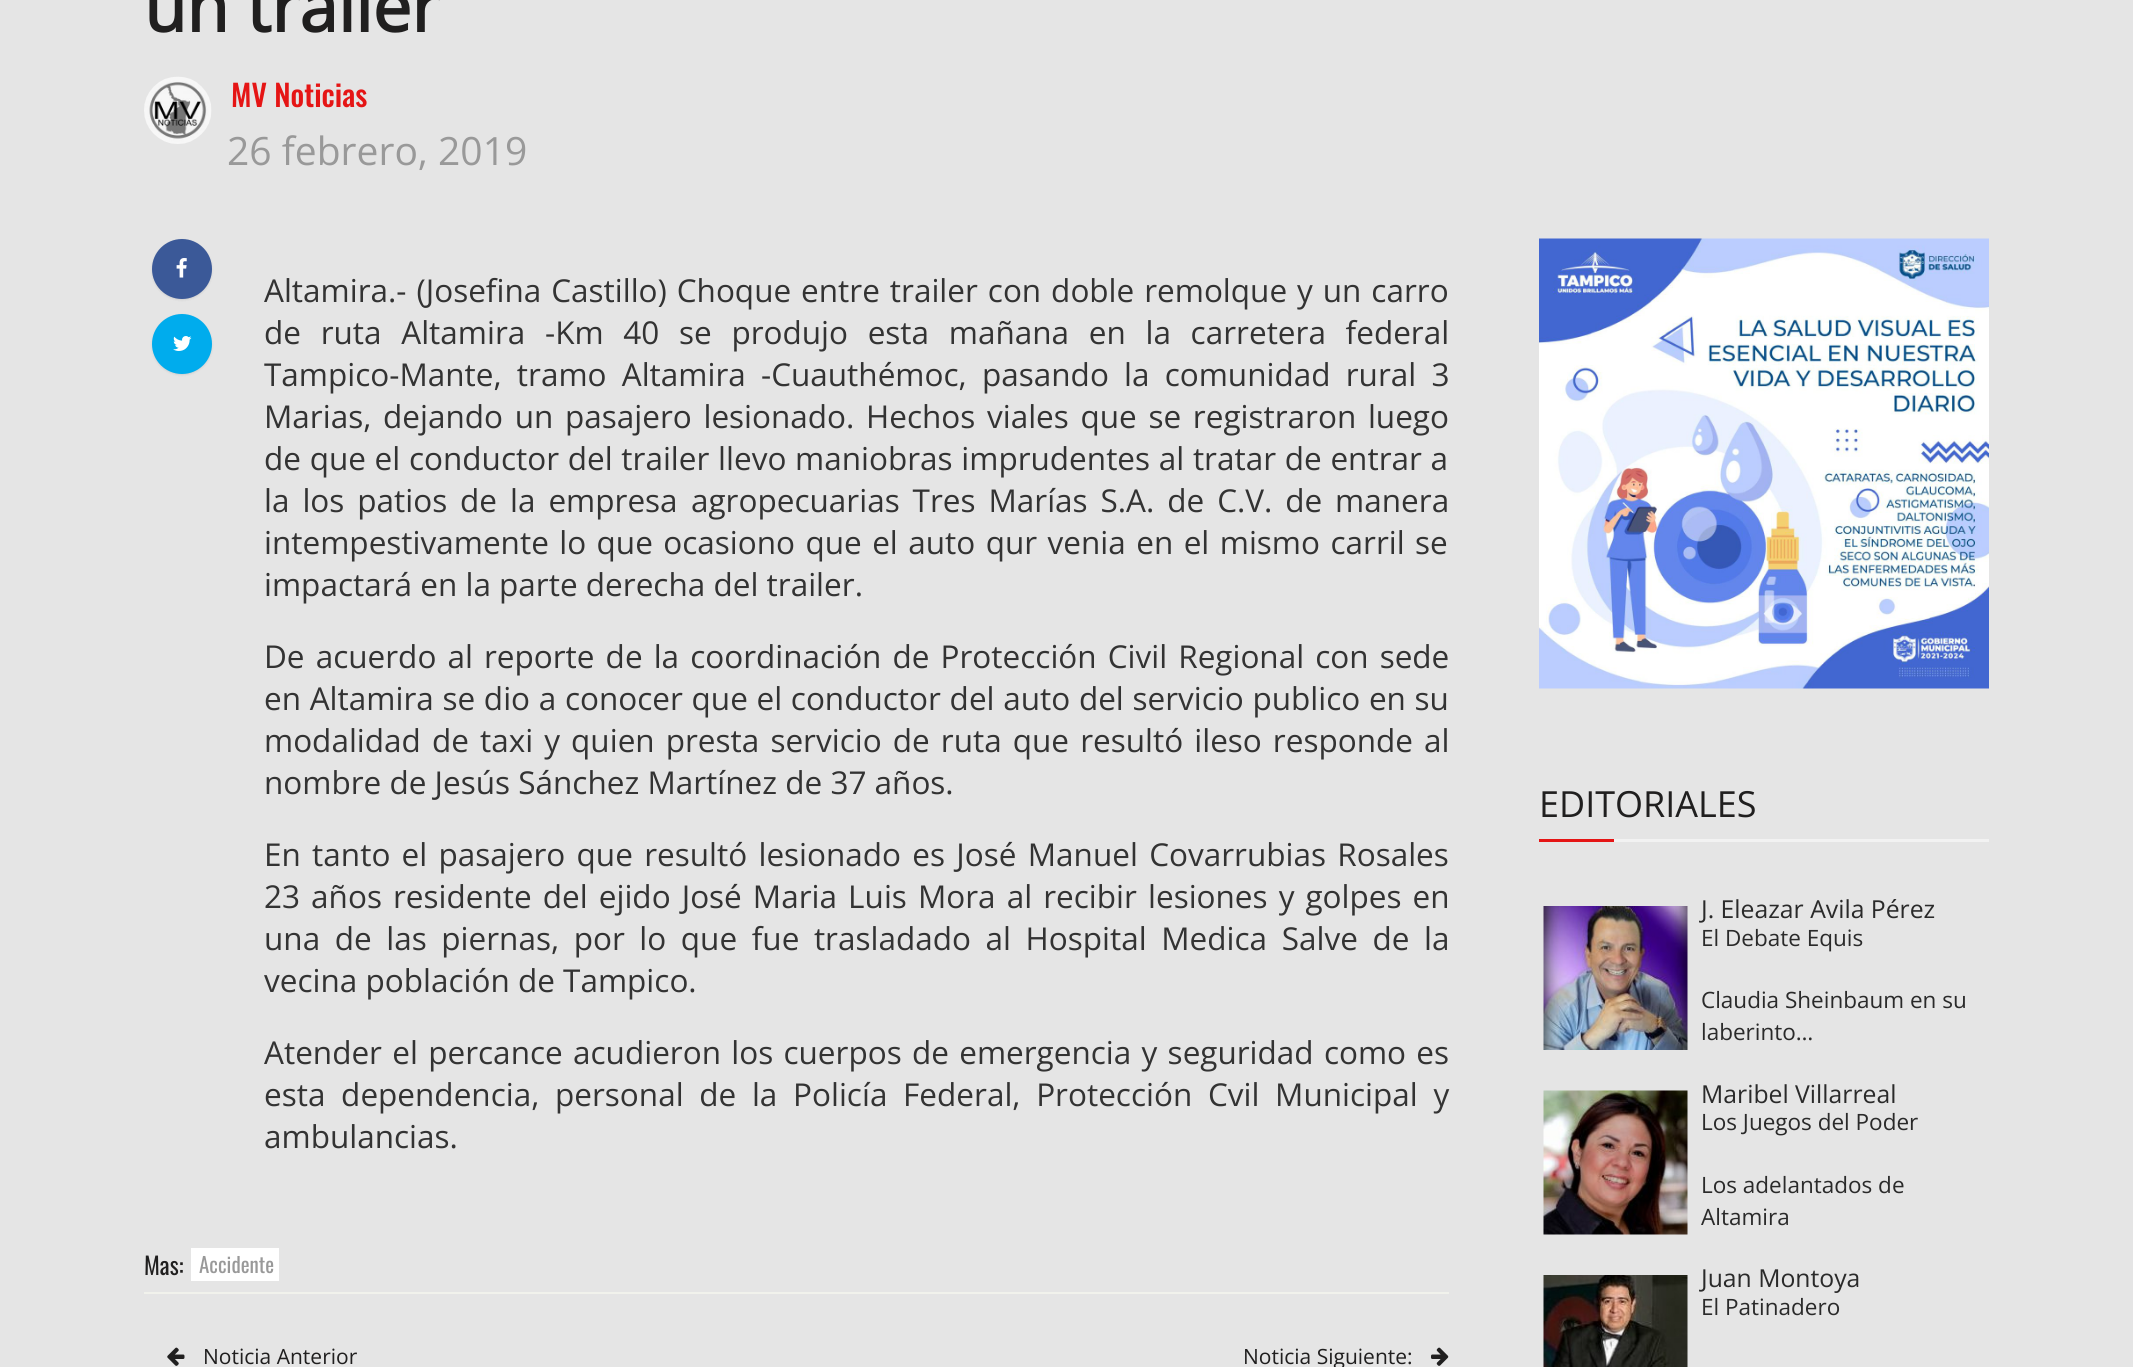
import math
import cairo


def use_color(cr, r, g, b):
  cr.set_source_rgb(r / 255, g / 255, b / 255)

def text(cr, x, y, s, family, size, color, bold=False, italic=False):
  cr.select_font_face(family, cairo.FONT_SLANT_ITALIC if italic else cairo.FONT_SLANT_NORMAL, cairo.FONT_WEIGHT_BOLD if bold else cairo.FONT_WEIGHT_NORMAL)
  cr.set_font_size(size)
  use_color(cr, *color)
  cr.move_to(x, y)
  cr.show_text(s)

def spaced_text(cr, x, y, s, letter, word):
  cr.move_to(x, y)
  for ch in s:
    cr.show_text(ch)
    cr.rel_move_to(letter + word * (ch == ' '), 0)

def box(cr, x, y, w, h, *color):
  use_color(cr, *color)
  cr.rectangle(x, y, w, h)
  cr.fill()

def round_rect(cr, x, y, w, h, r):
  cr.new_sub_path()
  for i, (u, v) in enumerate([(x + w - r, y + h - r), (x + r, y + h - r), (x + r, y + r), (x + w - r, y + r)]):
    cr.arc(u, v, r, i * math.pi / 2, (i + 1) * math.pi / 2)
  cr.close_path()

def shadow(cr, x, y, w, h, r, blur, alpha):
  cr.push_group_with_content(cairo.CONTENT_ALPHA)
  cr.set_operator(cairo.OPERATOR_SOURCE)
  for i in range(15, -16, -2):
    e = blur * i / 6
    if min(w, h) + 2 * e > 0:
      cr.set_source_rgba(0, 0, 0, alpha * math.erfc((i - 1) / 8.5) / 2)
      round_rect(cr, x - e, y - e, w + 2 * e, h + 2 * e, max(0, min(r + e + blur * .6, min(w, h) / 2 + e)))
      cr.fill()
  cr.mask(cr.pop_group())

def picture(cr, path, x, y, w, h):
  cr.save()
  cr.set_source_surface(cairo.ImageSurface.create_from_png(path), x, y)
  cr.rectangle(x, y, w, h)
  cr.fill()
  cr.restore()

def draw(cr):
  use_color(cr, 229, 229, 229)
  cr.paint()
  picture(cr, "img_01.png", 144, 76, 68, 68)
  use_color(cr, 0, 0, 0)
  shadow(cr, 152, 240, 60, 60, 30, 1, 0.1)
  use_color(cr, 59, 89, 152)
  cr.arc(182, 269, 30, 0, 2 * math.pi)
  cr.fill()
  picture(cr, "img_02.png", 176, 258, 11, 20)
  use_color(cr, 0, 0, 0)
  shadow(cr, 152, 315, 60, 60, 30, 1, 0.1)
  use_color(cr, 0, 172, 237)
  cr.arc(182, 344, 30, 0, 2 * math.pi)
  cr.fill()
  picture(cr, "img_03.png", 173, 336, 19, 15)
  box(cr, 144, 1292, 1305, 2, 241, 242, 236)
  box(cr, 191, 1248, 88, 33, 255, 255, 255)
  picture(cr, "img_04.png", 167, 1347, 18, 19)
  picture(cr, "img_05.png", 1431, 1347, 18, 19)
  picture(cr, "img_06.png", 1539, 238, 450, 451)
  box(cr, 1614, 839, 375, 3, 242, 242, 242)
  box(cr, 1539, 839, 75, 3, 229, 21, 21)
  picture(cr, "img_07.png", 1543, 906, 145, 144)
  picture(cr, "img_08.png", 1543, 1090, 145, 145)
  picture(cr, "img_09.png", 1543, 1275, 145, 92)
  text(cr, 144, 32, "un trailer", "Open Sans", 69, (32, 31, 31), bold=True)
  text(cr, 231, 107, "MV Noticias", "Oswald Medium", 30, (229, 21, 21))
  text(cr, 227, 165, "26 febrero, 2019", "Open Sans", 39, (153, 153, 153))
  cr.set_font_size(31.5)
  use_color(cr, 51, 51, 51)
  spaced_text(cr, 264, 302, "Altamira.- (Josefina Castillo) Choque entre trailer con doble remolque y un carro", 0, 1.75)
  spaced_text(cr, 264, 344, "de ruta Altamira -Km 40 se produjo esta mañana en la carretera federal", 0, 11.5)
  spaced_text(cr, 264, 386, "Tampico-Mante, tramo Altamira -Cuauthémoc,", 0, 7)
  spaced_text(cr, 982, 386, "pasando la comunidad rural 3", 0, 7)
  spaced_text(cr, 264, 428, "Marias, dejando un pasajero lesionado. Hechos viales que se registraron luego", 0, 3.5)
  spaced_text(cr, 264, 470, "de que el conductor del trailer llevo maniobras imprudentes al tratar de entrar a", 0, 0.5)
  spaced_text(cr, 264, 512, "la los patios de la empresa", 0, 4.75)
  spaced_text(cr, 691, 512, "agropecuarias Tres Marías S.A. de C.V. de manera", 0, 4.75)
  spaced_text(cr, 264, 554, "intempestivamente lo que ocasiono que el auto qur venia en el mismo carril se", 0, 2.25)
  text(cr, 264, 596, "impactará en la parte derecha del trailer.", "Open Sans", 31.5, (51, 51, 51))
  spaced_text(cr, 264, 668, "De acuerdo al reporte de la coordinación de Protección Civil Regional con sede", 0, 2.9)
  spaced_text(cr, 264, 710, "en Altamira se dio a conocer que el conductor del auto del servicio publico en su", 0, 0.5)
  spaced_text(cr, 264, 752, "modalidad de taxi y quien presta servicio de ruta que resultó ileso responde al", 0, 2.9)
  text(cr, 264, 794, "nombre de Jesús Sánchez Martínez de 37 años.", "Open Sans", 31.5, (51, 51, 51))
  spaced_text(cr, 264, 866, "En tanto el pasajero que resultó lesionado es José Manuel Covarrubias Rosales", 0, 3.1)
  spaced_text(cr, 264, 908, "23 años residente del ejido José Maria Luis Mora al recibir lesiones y golpes en", 0, 2.9)
  spaced_text(cr, 264, 950, "una de las piernas, por lo que fue trasladado al Hospital Medica Salve de la", 0, 6.4)
  text(cr, 264, 992, "vecina población de Tampico.", "Open Sans", 31.5, (51, 51, 51))
  spaced_text(cr, 264, 1064, "Atender el percance acudieron los cuerpos de emergencia y seguridad como es", 0, 2.1)
  spaced_text(cr, 264, 1106, "esta dependencia, personal de la Policía Federal, Protección Cvil Municipal y", 0, 7.5)
  text(cr, 264, 1148, "ambulancias.", "Open Sans", 31.5, (51, 51, 51))
  text(cr, 144, 1275, "Mas:", "Oswald", 24, (32, 31, 31))
  text(cr, 199, 1273, "Accidente", "Oswald", 21, (153, 153, 153))
  text(cr, 203, 1364, "Noticia Anterior", "Open Sans", 21, (32, 31, 31))
  text(cr, 1243, 1364, "Noticia Siguiente:", "Open Sans", 21, (32, 31, 31))
  text(cr, 1539, 817, "EDITORIALES", "Open Sans", 36, (32, 31, 31))
  text(cr, 1701, 918, "J. Eleazar Avila Pérez", "Open Sans", 24.75, (42, 42, 42))
  text(cr, 1701, 946, "El Debate Equis", "Open Sans", 22.5, (42, 42, 42))
  text(cr, 1701, 1008, "Claudia Sheinbaum en su", "Open Sans", 22.5, (42, 42, 42))
  text(cr, 1701, 1040, "laberinto…", "Open Sans", 22.5, (42, 42, 42))
  text(cr, 1701, 1103, "Maribel Villarreal", "Open Sans", 24.75, (42, 42, 42))
  text(cr, 1701, 1130, "Los Juegos del Poder", "Open Sans", 22.5, (42, 42, 42))
  text(cr, 1701, 1193, "Los adelantados de", "Open Sans", 22.5, (42, 42, 42))
  text(cr, 1701, 1225, "Altamira", "Open Sans", 22.5, (42, 42, 42))
  text(cr, 1701, 1287, "Juan Montoya", "Open Sans", 24.75, (42, 42, 42))
  text(cr, 1701, 1315, "El Patinadero", "Open Sans", 22.5, (42, 42, 42))


surface = cairo.ImageSurface(cairo.FORMAT_RGB24, 2133, 1367)
cr = cairo.Context(surface)
options = cairo.FontOptions()
options.set_hint_metrics(cairo.HINT_METRICS_OFF)
options.set_hint_style(cairo.HINT_STYLE_NONE)
cr.set_font_options(options)
cr.set_miter_limit(4)
draw(cr)
surface.write_to_png("out.png")
